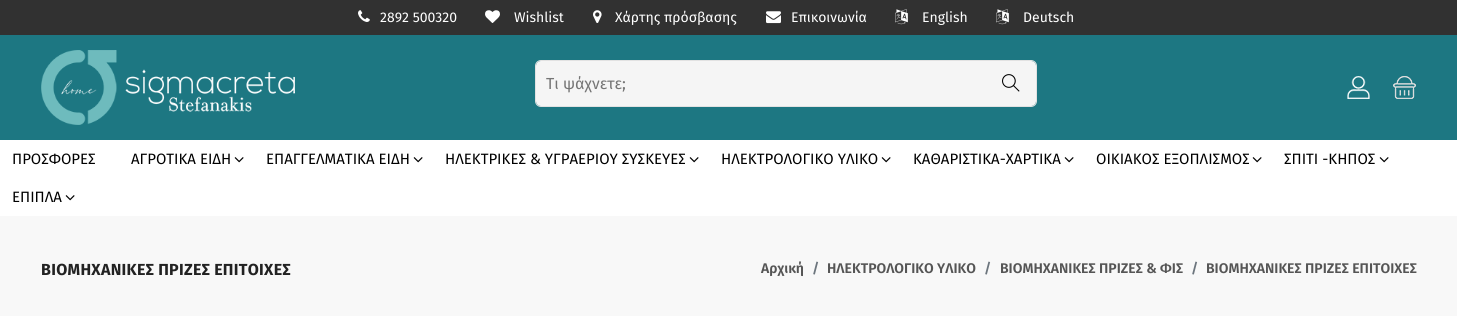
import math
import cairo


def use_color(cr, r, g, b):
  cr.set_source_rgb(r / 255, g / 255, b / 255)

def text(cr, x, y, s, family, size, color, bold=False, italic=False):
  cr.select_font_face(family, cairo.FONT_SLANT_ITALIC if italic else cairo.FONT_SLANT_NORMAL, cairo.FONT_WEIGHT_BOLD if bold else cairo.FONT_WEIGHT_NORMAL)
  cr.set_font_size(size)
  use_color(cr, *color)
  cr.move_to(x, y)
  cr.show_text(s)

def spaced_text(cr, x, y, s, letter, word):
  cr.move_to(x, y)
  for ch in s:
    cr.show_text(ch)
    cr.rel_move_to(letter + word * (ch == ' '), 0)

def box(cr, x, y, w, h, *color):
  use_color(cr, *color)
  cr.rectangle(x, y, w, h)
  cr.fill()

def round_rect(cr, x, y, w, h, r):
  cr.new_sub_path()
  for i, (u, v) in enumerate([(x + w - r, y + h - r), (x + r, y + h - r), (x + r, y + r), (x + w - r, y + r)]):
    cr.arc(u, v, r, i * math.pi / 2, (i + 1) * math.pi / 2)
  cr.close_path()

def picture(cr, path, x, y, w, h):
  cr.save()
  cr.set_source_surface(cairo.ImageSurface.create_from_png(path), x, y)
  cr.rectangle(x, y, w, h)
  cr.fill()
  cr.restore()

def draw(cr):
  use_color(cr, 29, 119, 130)
  cr.paint()
  box(cr, 0, 0, 1457, 35, 49, 49, 49)
  picture(cr, "img_01.png", 358, 10, 12, 12)
  picture(cr, "img_02.png", 485, 10, 15, 13)
  picture(cr, "img_03.png", 593, 10, 9, 13)
  picture(cr, "img_04.png", 766, 11, 15, 13)
  picture(cr, "img_05.png", 895, 9, 13, 16)
  picture(cr, "img_05.png", 996, 9, 13, 16)
  picture(cr, "img_06.png", 41, 50, 254, 75)
  round_rect(cr, 535.5, 60.5, 501, 46, 5.5)
  use_color(cr, 226, 226, 226)
  cr.set_line_width(1)
  cr.stroke()
  use_color(cr, 245, 245, 245)
  round_rect(cr, 536, 61, 500, 45, 5)
  cr.fill()
  picture(cr, "img_07.png", 1002, 74, 18, 18)
  picture(cr, "img_08.png", 1347, 76, 23, 23)
  picture(cr, "img_09.png", 1393, 76, 23, 23)
  box(cr, 0, 140, 1457, 76, 255, 255, 255)
  picture(cr, "img_10.png", 234, 157, 10, 6)
  picture(cr, "img_10.png", 413, 157, 10, 6)
  picture(cr, "img_10.png", 689, 157, 10, 6)
  picture(cr, "img_10.png", 881, 157, 10, 6)
  picture(cr, "img_10.png", 1064, 157, 10, 6)
  picture(cr, "img_10.png", 1252, 157, 10, 6)
  picture(cr, "img_10.png", 1379, 157, 10, 6)
  picture(cr, "img_10.png", 65, 195, 10, 6)
  box(cr, 0, 216, 1457, 100, 248, 248, 248)
  text(cr, 380, 22, "2892 500320", "Fira Sans", 14, (255, 255, 255))
  text(cr, 514, 22, "Wishlist", "Fira Sans", 14, (255, 255, 255))
  text(cr, 615, 22, "Χάρτης πρόσβασης", "Fira Sans", 14, (255, 255, 255))
  text(cr, 791, 22, "Επικοινωνία", "Fira Sans", 14, (255, 255, 255))
  text(cr, 922, 22, "English", "Fira Sans", 14, (255, 255, 255))
  text(cr, 1023, 22, "Deutsch", "Fira Sans", 14, (255, 255, 255))
  text(cr, 546, 89, "Τι ψάχνετε;", "Fira Sans", 16, (117, 117, 117))
  text(cr, 12, 164, "ΠΡΟΣΦΟΡΕΣ", "Fira Sans", 15, (0, 0, 0))
  text(cr, 131, 164, "ΑΓΡΟΤΙΚΑ ΕΙΔΗ", "Fira Sans", 15, (0, 0, 0))
  text(cr, 266, 164, "ΕΠΑΓΓΕΛΜΑΤΙΚΑ ΕΙΔΗ", "Fira Sans", 15, (0, 0, 0))
  text(cr, 445, 164, "ΗΛΕΚΤΡΙΚΕΣ & ΥΓΡΑΕΡΙΟΥ ΣΥΣΚΕΥΕΣ", "Fira Sans", 15, (0, 0, 0))
  text(cr, 721, 164, "ΗΛΕΚΤΡΟΛΟΓΙΚΟ ΥΛΙΚΟ", "Fira Sans", 15, (0, 0, 0))
  text(cr, 913, 164, "ΚΑΘΑΡΙΣΤΙΚΑ-ΧΑΡΤΙΚΑ", "Fira Sans", 15, (0, 0, 0))
  text(cr, 1096, 164, "ΟΙΚΙΑΚΟΣ ΕΞΟΠΛΙΣΜΟΣ", "Fira Sans", 15, (0, 0, 0))
  text(cr, 1284, 164, "ΣΠΙΤΙ -ΚΗΠΟΣ", "Fira Sans", 15, (0, 0, 0))
  text(cr, 12, 202, "ΕΠΙΠΛΑ", "Fira Sans", 15, (0, 0, 0))
  cr.select_font_face("Fira Sans", cairo.FONT_SLANT_NORMAL, cairo.FONT_WEIGHT_BOLD)
  cr.set_font_size(16)
  use_color(cr, 34, 34, 34)
  spaced_text(cr, 41, 275, "ΒΙΟΜΗΧΑΝΙΚΕΣ ΠΡΙΖΕΣ ΕΠΙΤΟΙΧΕΣ", 0.3, 0)
  text(cr, 761, 273, "Αρχική", "Fira Sans SemiBold", 14, (85, 85, 85))
  text(cr, 812, 273, "/", "Fira Sans SemiBold", 14, (108, 117, 125))
  text(cr, 827, 273, "ΗΛΕΚΤΡΟΛΟΓΙΚΟ ΥΛΙΚΟ", "Fira Sans SemiBold", 14, (85, 85, 85))
  text(cr, 984, 273, "/", "Fira Sans SemiBold", 14, (108, 117, 125))
  text(cr, 1000, 273, "ΒΙΟΜΗΧΑΝΙΚΕΣ ΠΡΙΖΕΣ & ΦΙΣ", "Fira Sans SemiBold", 14, (85, 85, 85))
  text(cr, 1191, 273, "/", "Fira Sans SemiBold", 14, (108, 117, 125))
  text(cr, 1206, 273, "ΒΙΟΜΗΧΑΝΙΚΕΣ ΠΡΙΖΕΣ ΕΠΙΤΟΙΧΕΣ", "Fira Sans SemiBold", 14, (85, 85, 85))


surface = cairo.ImageSurface(cairo.FORMAT_RGB24, 1457, 316)
cr = cairo.Context(surface)
options = cairo.FontOptions()
options.set_hint_metrics(cairo.HINT_METRICS_OFF)
options.set_hint_style(cairo.HINT_STYLE_NONE)
cr.set_font_options(options)
cr.set_miter_limit(4)
draw(cr)
surface.write_to_png("out.png")
